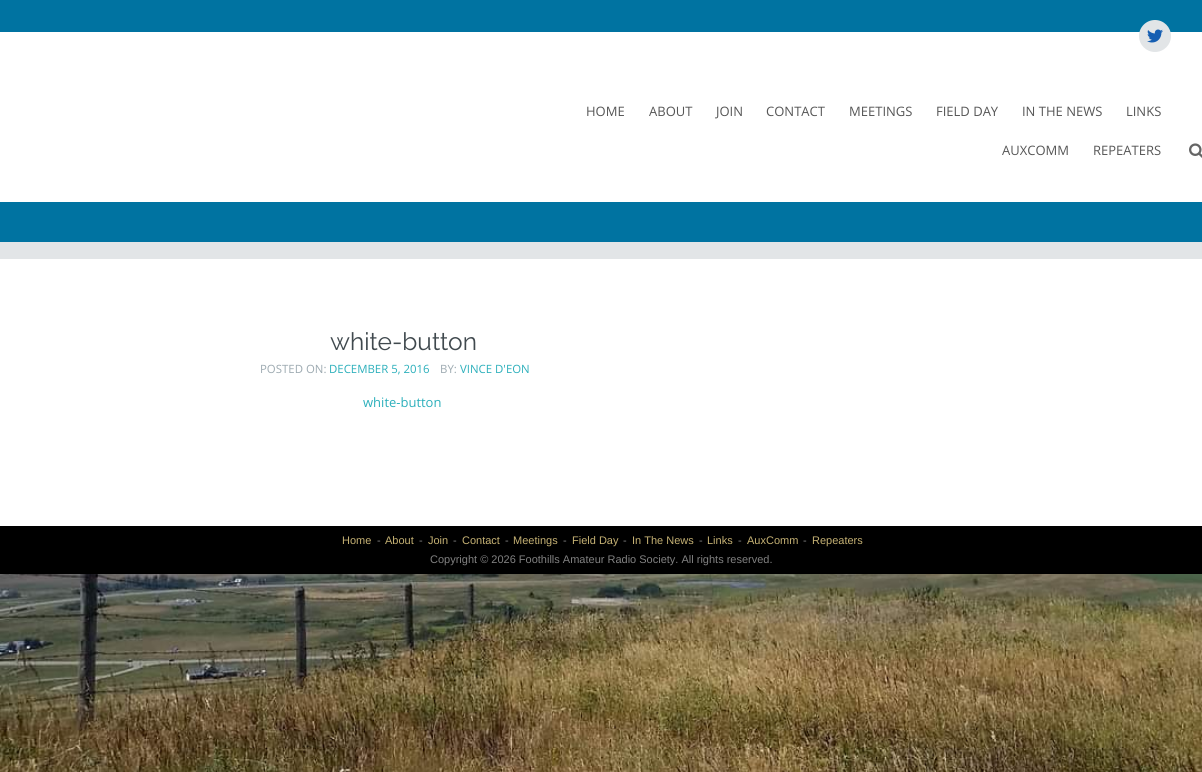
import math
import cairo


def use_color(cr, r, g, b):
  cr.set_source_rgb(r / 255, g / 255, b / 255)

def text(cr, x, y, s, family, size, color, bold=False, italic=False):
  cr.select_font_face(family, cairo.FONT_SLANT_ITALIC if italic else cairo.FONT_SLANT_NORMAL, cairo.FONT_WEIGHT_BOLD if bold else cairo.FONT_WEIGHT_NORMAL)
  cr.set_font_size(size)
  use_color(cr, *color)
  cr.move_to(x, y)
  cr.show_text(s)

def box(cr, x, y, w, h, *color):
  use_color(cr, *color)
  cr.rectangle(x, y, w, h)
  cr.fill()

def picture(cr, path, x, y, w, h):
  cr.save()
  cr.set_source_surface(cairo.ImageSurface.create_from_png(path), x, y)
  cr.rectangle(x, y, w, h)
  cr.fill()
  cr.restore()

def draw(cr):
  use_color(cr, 255, 255, 255)
  cr.paint()
  picture(cr, "img_01.png", 0, 574, 1202, 198)
  box(cr, 0, 0, 1202, 32, 0, 115, 161)
  use_color(cr, 226, 229, 231)
  cr.arc(1155, 36, 16, 0, 2 * math.pi)
  cr.fill()
  picture(cr, "img_02.png", 1147, 29, 16, 14)
  picture(cr, "img_03.png", 1189, 143, 13, 15)
  box(cr, 0, 202, 1202, 40, 0, 115, 161)
  box(cr, 0, 242, 1202, 17, 226, 229, 231)
  box(cr, 0, 526, 1202, 48, 0, 0, 0)
  text(cr, 586, 116, "HOME", "Open Sans", 13, (86, 86, 86))
  text(cr, 649, 116, "ABOUT", "Open Sans", 13, (86, 86, 86))
  text(cr, 716, 116, "JOIN", "Open Sans", 13, (86, 86, 86))
  text(cr, 766, 116, "CONTACT", "Open Sans", 13, (86, 86, 86))
  text(cr, 849, 116, "MEETINGS", "Open Sans", 13, (86, 86, 86))
  text(cr, 936, 116, "FIELD DAY", "Open Sans", 13, (86, 86, 86))
  text(cr, 1022, 116, "IN THE NEWS", "Open Sans", 13, (86, 86, 86))
  text(cr, 1126, 116, "LINKS", "Open Sans", 13, (86, 86, 86))
  text(cr, 1002, 155, "AUXCOMM", "Open Sans", 13, (86, 86, 86))
  text(cr, 1093, 155, "REPEATERS", "Open Sans", 13, (86, 86, 86))
  text(cr, 330, 350, "white-button", "Raleway", 24.5, (64, 73, 78))
  text(cr, 260, 373, "POSTED ON:", "Open Sans", 11.4, (156, 169, 176))
  text(cr, 329, 373, "DECEMBER 5, 2016", "Open Sans", 11.4, (43, 175, 187))
  text(cr, 440, 373, "BY:", "Open Sans", 11.4, (156, 169, 176))
  text(cr, 460, 373, "VINCE D'EON", "Open Sans", 11.4, (43, 175, 187))
  text(cr, 363, 407, "white-button", "Open Sans", 13, (43, 175, 187))
  text(cr, 342, 544, "Home", "Liberation Sans", 11, (198, 178, 116))
  text(cr, 377, 544, "-", "Liberation Sans", 11, (129, 129, 129))
  text(cr, 385, 544, "About", "Liberation Sans", 11, (198, 178, 116))
  text(cr, 419, 544, "-", "Liberation Sans", 11, (129, 129, 129))
  text(cr, 428, 544, "Join", "Liberation Sans", 11, (198, 178, 116))
  text(cr, 453, 544, "-", "Liberation Sans", 11, (129, 129, 129))
  text(cr, 462, 544, "Contact", "Liberation Sans", 11, (198, 178, 116))
  text(cr, 505, 544, "-", "Liberation Sans", 11, (129, 129, 129))
  text(cr, 513, 544, "Meetings", "Liberation Sans", 11, (198, 178, 116))
  text(cr, 563, 544, "-", "Liberation Sans", 11, (129, 129, 129))
  text(cr, 572, 544, "Field Day", "Liberation Sans", 11, (198, 178, 116))
  text(cr, 623, 544, "-", "Liberation Sans", 11, (129, 129, 129))
  text(cr, 632, 544, "In The News", "Liberation Sans", 11, (198, 178, 116))
  text(cr, 699, 544, "-", "Liberation Sans", 11, (129, 129, 129))
  text(cr, 707, 544, "Links", "Liberation Sans", 11, (198, 178, 116))
  text(cr, 738, 544, "-", "Liberation Sans", 11, (129, 129, 129))
  text(cr, 747, 544, "AuxComm", "Liberation Sans", 11, (198, 178, 116))
  text(cr, 803, 544, "-", "Liberation Sans", 11, (129, 129, 129))
  text(cr, 812, 544, "Repeaters", "Liberation Sans", 11, (198, 178, 116))
  text(cr, 430, 563, "Copyright © 2026 Foothills Amateur Radio Society. All rights reserved.", "Liberation Sans", 11, (129, 129, 129))


surface = cairo.ImageSurface(cairo.FORMAT_RGB24, 1202, 772)
cr = cairo.Context(surface)
options = cairo.FontOptions()
options.set_hint_metrics(cairo.HINT_METRICS_OFF)
options.set_hint_style(cairo.HINT_STYLE_NONE)
cr.set_font_options(options)
cr.set_miter_limit(4)
draw(cr)
surface.write_to_png("out.png")
